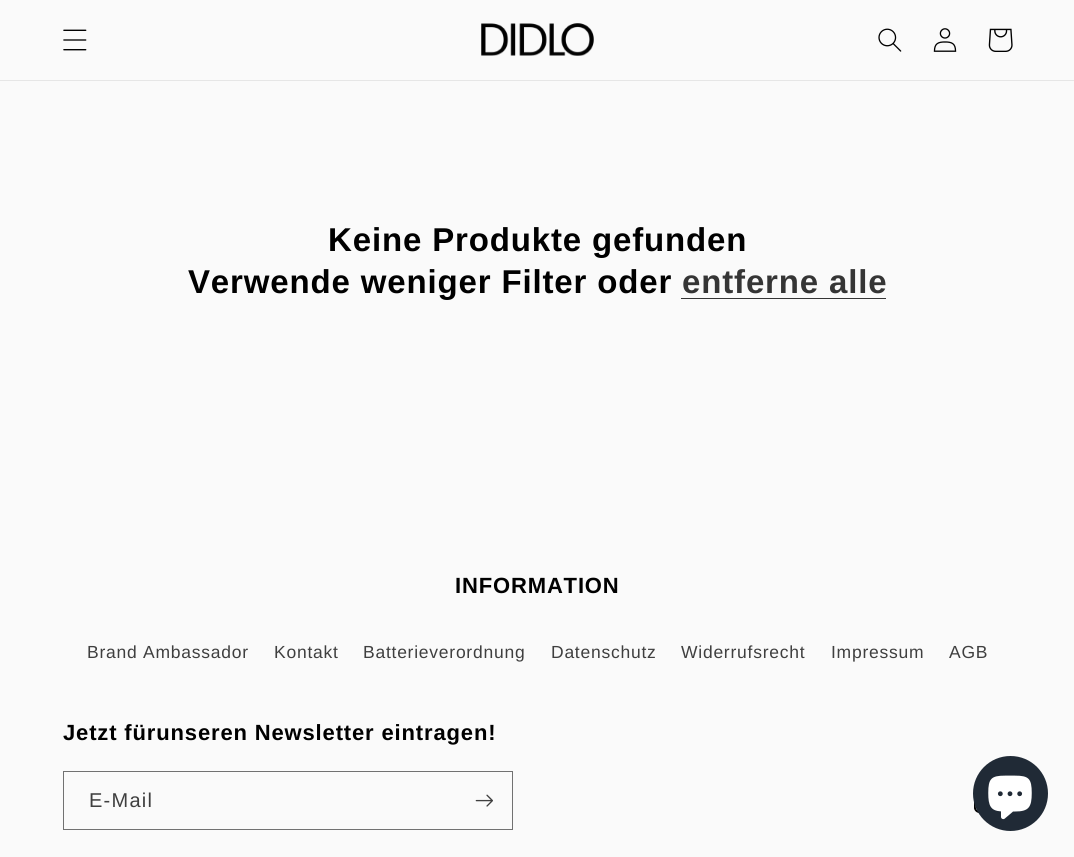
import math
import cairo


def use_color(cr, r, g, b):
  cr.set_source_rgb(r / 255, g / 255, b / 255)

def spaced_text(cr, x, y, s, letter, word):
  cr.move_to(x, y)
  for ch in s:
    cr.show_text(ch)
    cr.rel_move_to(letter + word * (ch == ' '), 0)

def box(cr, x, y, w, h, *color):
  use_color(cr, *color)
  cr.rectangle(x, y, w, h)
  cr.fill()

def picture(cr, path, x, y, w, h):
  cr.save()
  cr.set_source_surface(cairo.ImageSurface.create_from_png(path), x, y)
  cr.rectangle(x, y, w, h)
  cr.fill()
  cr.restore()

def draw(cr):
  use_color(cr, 250, 250, 250)
  cr.paint()
  box(cr, 0, 80, 1074, 1, 230, 230, 230)
  picture(cr, "img_01.png", 63, 29, 24, 22)
  picture(cr, "img_02.png", 481, 23, 113, 33)
  picture(cr, "img_03.png", 878, 28, 24, 24)
  picture(cr, "img_04.png", 933, 28, 24, 24)
  picture(cr, "img_05.png", 988, 28, 25, 24)
  box(cr, 681, 298, 205, 1, 53, 53, 53)
  cr.rectangle(63.5, 771.5, 449, 58)
  use_color(cr, 113, 113, 113)
  cr.set_line_width(1)
  cr.stroke()
  picture(cr, "img_06.png", 475, 794, 18, 13)
  picture(cr, "img_07.png", 974, 802, 6, 12)
  use_color(cr, 32, 42, 54)
  cr.arc(1010.5, 793.5, 37.5, 0, 2 * math.pi)
  cr.fill()
  picture(cr, "img_08.png", 988, 775, 44, 45)
  cr.select_font_face("Liberation Sans", cairo.FONT_SLANT_NORMAL, cairo.FONT_WEIGHT_BOLD)
  cr.set_font_size(33)
  use_color(cr, 0, 0, 0)
  spaced_text(cr, 328, 251, "Keine Produkte gefunden", 0.85, 0)
  spaced_text(cr, 188, 293, "Verwende weniger Filter oder", 0.85, 0)
  use_color(cr, 53, 53, 53)
  spaced_text(cr, 682, 293, "entferne alle", 0.85, 0)
  cr.set_font_size(22)
  use_color(cr, 0, 0, 0)
  spaced_text(cr, 455, 593, "INFORMATION", 0.85, 0)
  cr.select_font_face("Liberation Sans")
  cr.set_font_size(17.5)
  use_color(cr, 63, 63, 63)
  spaced_text(cr, 87, 658, "Brand Ambassador", 0.75, 0)
  spaced_text(cr, 274, 658, "Kontakt", 0.75, 0)
  spaced_text(cr, 363, 658, "Batterieverordnung", 0.75, 0)
  spaced_text(cr, 551, 658, "Datenschutz", 0.75, 0)
  spaced_text(cr, 681, 658, "Widerrufsrecht", 0.75, 0)
  spaced_text(cr, 831, 658, "Impressum", 0.75, 0)
  spaced_text(cr, 949, 658, "AGB", 0.75, 0)
  cr.select_font_face("Liberation Sans", cairo.FONT_SLANT_NORMAL, cairo.FONT_WEIGHT_BOLD)
  cr.set_font_size(22)
  use_color(cr, 0, 0, 0)
  spaced_text(cr, 63, 740, "Jetzt fürunseren Newsletter eintragen!", 0.85, 0)
  cr.select_font_face("Liberation Sans")
  cr.set_font_size(20)
  use_color(cr, 63, 63, 63)
  spaced_text(cr, 89, 807, "E-Mail", 1.25, 0)


surface = cairo.ImageSurface(cairo.FORMAT_RGB24, 1074, 857)
cr = cairo.Context(surface)
options = cairo.FontOptions()
options.set_hint_metrics(cairo.HINT_METRICS_OFF)
options.set_hint_style(cairo.HINT_STYLE_NONE)
cr.set_font_options(options)
cr.set_miter_limit(4)
draw(cr)
surface.write_to_png("out.png")
